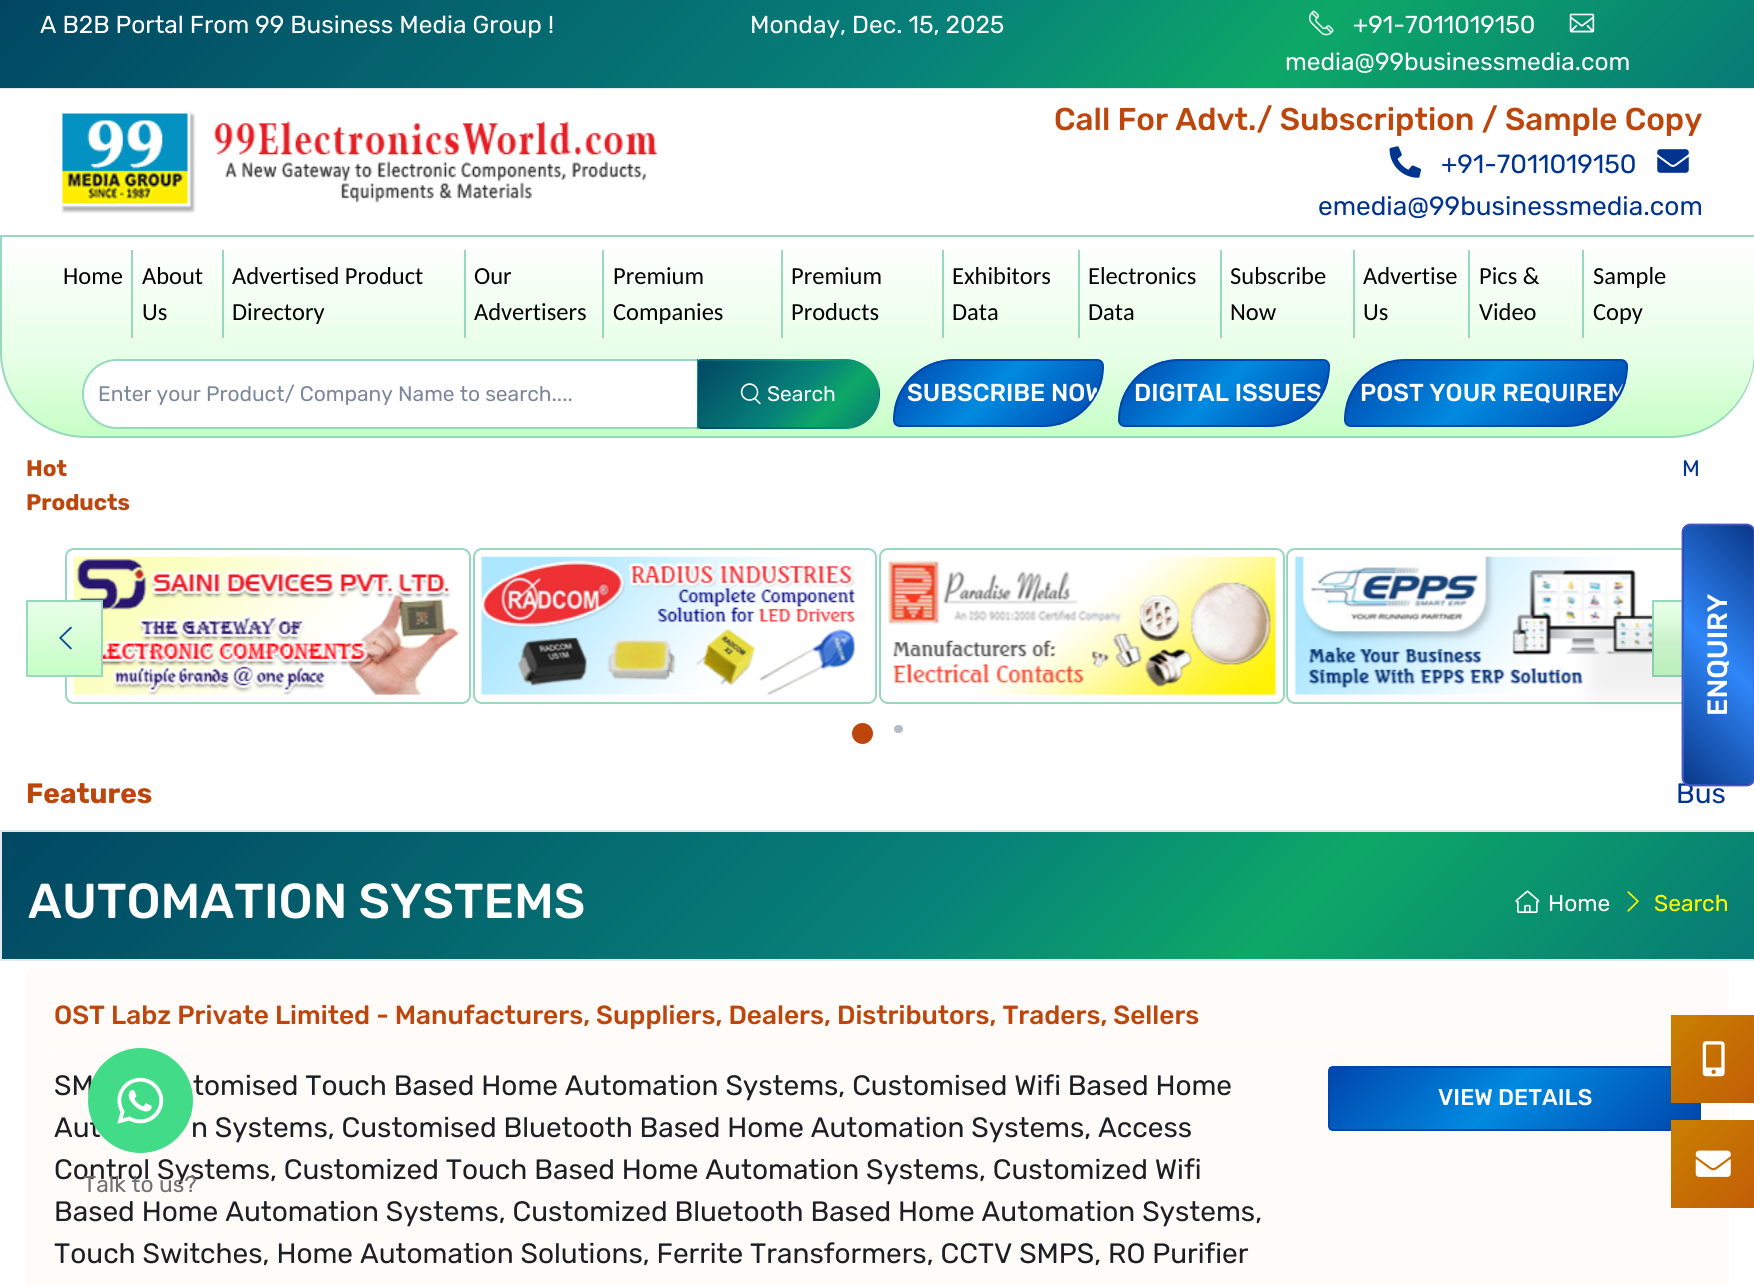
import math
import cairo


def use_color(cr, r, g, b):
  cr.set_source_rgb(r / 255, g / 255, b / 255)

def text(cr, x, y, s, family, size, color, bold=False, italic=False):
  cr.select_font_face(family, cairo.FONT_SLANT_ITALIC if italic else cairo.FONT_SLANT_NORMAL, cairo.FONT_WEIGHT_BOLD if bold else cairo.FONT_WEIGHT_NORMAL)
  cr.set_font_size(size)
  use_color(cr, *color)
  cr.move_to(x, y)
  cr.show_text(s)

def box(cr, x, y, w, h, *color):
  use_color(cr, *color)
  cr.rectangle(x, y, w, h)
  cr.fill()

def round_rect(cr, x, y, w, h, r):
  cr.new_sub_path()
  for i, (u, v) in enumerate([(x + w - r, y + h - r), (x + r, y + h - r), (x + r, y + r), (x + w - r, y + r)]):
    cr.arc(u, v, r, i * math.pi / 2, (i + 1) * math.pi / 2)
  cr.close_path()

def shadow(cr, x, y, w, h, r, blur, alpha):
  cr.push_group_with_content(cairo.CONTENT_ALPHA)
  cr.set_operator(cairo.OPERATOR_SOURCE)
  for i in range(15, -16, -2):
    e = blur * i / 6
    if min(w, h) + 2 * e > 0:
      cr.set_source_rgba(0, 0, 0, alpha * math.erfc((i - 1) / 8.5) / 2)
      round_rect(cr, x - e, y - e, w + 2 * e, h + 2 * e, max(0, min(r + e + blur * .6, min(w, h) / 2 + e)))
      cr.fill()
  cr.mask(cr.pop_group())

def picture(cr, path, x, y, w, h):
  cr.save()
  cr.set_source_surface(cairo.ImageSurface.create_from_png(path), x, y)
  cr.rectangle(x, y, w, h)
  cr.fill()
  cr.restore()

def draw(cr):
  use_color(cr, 255, 255, 255)
  cr.paint()
  gradient = cairo.LinearGradient(417, -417, 1338, 504)
  gradient.add_color_stop_rgba(0, 0.004, 0.278, 0.388, 1)
  gradient.add_color_stop_rgba(0.53, 0.027, 0.51, 0.475, 1)
  gradient.add_color_stop_rgba(0.73, 0.051, 0.659, 0.404, 1)
  gradient.add_color_stop_rgba(1, 0.027, 0.478, 0.463, 1)
  cr.set_source(gradient)
  cr.rectangle(0, 0, 1754, 88)
  cr.fill()
  box(cr, 0, 88, 1754, 1, 227, 233, 239)
  picture(cr, "img_01.png", 1309, 10, 25, 26)
  picture(cr, "img_02.png", 1569, 13, 26, 20)
  picture(cr, "img_03.png", 61, 111, 597, 103)
  picture(cr, "img_04.png", 1389, 146, 32, 32)
  picture(cr, "img_05.png", 1657, 149, 32, 24)
  gradient = cairo.LinearGradient(878, 236, 878, 352)
  gradient.add_color_stop_rgba(0, 1, 1, 1, 1)
  gradient.add_color_stop_rgba(0.99, 0.91, 1, 0.91, 1)
  cr.set_source(gradient)
  cr.rectangle(2, 248, 1752, 104)
  cr.fill()
  box(cr, 0, 235, 1754, 2, 151, 216, 190)
  box(cr, 0, 235, 2, 117, 151, 216, 190)
  box(cr, 131, 250, 2, 88, 151, 216, 190)
  box(cr, 222, 250, 2, 88, 151, 216, 190)
  box(cr, 464, 250, 2, 88, 151, 216, 190)
  box(cr, 602, 250, 2, 88, 151, 216, 190)
  box(cr, 781, 250, 2, 88, 151, 216, 190)
  box(cr, 942, 250, 2, 88, 151, 216, 190)
  box(cr, 1078, 250, 2, 88, 151, 216, 190)
  box(cr, 1220, 250, 2, 88, 151, 216, 190)
  box(cr, 1353, 250, 2, 88, 151, 216, 190)
  box(cr, 1468, 250, 2, 88, 151, 216, 190)
  box(cr, 1582, 250, 2, 88, 151, 216, 190)
  cr.save()
  cr.new_path()
  cr.move_to(0, 352)
  cr.line_to(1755, 352)
  cr.curve_to(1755, 399.5, 1716.5, 438, 1669, 438)
  cr.line_to(86, 438)
  cr.curve_to(38.5, 438, 0, 399.5, 0, 352)
  cr.close_path()
  cr.clip()
  gradient = cairo.LinearGradient(878, 352, 878, 436)
  gradient.add_color_stop_rgba(0.01, 0.91, 1, 0.91, 1)
  gradient.add_color_stop_rgba(1, 0.776, 1, 0.776, 1)
  cr.set_source(gradient)
  cr.rectangle(0, 352, 1754, 84)
  cr.fill()
  cr.restore()
  cr.set_fill_rule(cairo.FILL_RULE_EVEN_ODD)
  cr.new_path()
  cr.move_to(0, 352)
  cr.line_to(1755, 352)
  cr.curve_to(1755, 399, 1717, 438, 1670, 438)
  cr.line_to(86, 438)
  cr.curve_to(38, 438, 0, 399, 0, 352)
  cr.close_path()
  cr.move_to(2, 352)
  cr.line_to(1754, 352)
  cr.curve_to(1754, 398, 1716, 436, 1670, 436)
  cr.line_to(86, 436)
  cr.curve_to(39, 436, 2, 398, 2, 352)
  cr.close_path()
  cr.fill()
  use_color(cr, 255, 255, 255)
  round_rect(cr, 83, 360, 796, 68, 34)
  cr.fill_preserve()
  use_color(cr, 151, 216, 190)
  cr.stroke()
  gradient = cairo.LinearGradient(546, 266, 670, 389)
  gradient.add_color_stop_rgba(0, 0.004, 0.278, 0.388, 1)
  gradient.add_color_stop_rgba(0.53, 0.027, 0.51, 0.475, 1)
  gradient.add_color_stop_rgba(0.73, 0.051, 0.659, 0.404, 1)
  gradient.add_color_stop_rgba(1, 0.027, 0.478, 0.463, 1)
  cr.set_source(gradient)
  cr.rectangle(697, 359, 1, 2)
  cr.fill()
  cr.save()
  cr.set_fill_rule(cairo.FILL_RULE_WINDING)
  cr.new_path()
  cr.move_to(701, 359)
  cr.line_to(845, 359)
  cr.curve_to(864.5, 359, 880, 374.5, 880, 394)
  cr.curve_to(880, 413.5, 864.5, 429, 845, 429)
  cr.line_to(701, 429)
  cr.curve_to(699, 429, 697, 427, 697, 425)
  cr.line_to(697, 363)
  cr.curve_to(697, 361, 699, 359, 701, 359)
  cr.close_path()
  cr.clip()
  gradient = cairo.LinearGradient(727, 266, 850, 389)
  gradient.add_color_stop_rgba(0, 0.004, 0.278, 0.388, 1)
  gradient.add_color_stop_rgba(0.53, 0.027, 0.51, 0.475, 1)
  gradient.add_color_stop_rgba(0.73, 0.051, 0.659, 0.404, 1)
  gradient.add_color_stop_rgba(1, 0.027, 0.478, 0.463, 1)
  cr.set_source(gradient)
  cr.rectangle(698, 359, 159, 2)
  cr.fill()
  cr.restore()
  gradient = cairo.LinearGradient(546, 332, 670, 455)
  gradient.add_color_stop_rgba(0, 0.004, 0.278, 0.388, 1)
  gradient.add_color_stop_rgba(0.53, 0.027, 0.51, 0.475, 1)
  gradient.add_color_stop_rgba(0.73, 0.051, 0.659, 0.404, 1)
  gradient.add_color_stop_rgba(1, 0.027, 0.478, 0.463, 1)
  cr.set_source(gradient)
  cr.rectangle(697, 361, 1, 66)
  cr.fill()
  cr.save()
  cr.set_fill_rule(cairo.FILL_RULE_WINDING)
  cr.new_path()
  cr.move_to(701, 359)
  cr.line_to(845, 359)
  cr.curve_to(864.5, 359, 880, 374.5, 880, 394)
  cr.curve_to(880, 413.5, 864.5, 429, 845, 429)
  cr.line_to(701, 429)
  cr.curve_to(699, 429, 697, 427, 697, 425)
  cr.line_to(697, 363)
  cr.curve_to(697, 361, 699, 359, 701, 359)
  cr.close_path()
  cr.clip()
  gradient = cairo.LinearGradient(727, 332, 850, 455)
  gradient.add_color_stop_rgba(0, 0.004, 0.278, 0.388, 1)
  gradient.add_color_stop_rgba(0.53, 0.027, 0.51, 0.475, 1)
  gradient.add_color_stop_rgba(0.73, 0.051, 0.659, 0.404, 1)
  gradient.add_color_stop_rgba(1, 0.027, 0.478, 0.463, 1)
  cr.set_source(gradient)
  cr.rectangle(698, 361, 181, 66)
  cr.fill()
  gradient = cairo.LinearGradient(907, 332, 1030, 455)
  gradient.add_color_stop_rgba(0, 0.004, 0.278, 0.388, 1)
  gradient.add_color_stop_rgba(0.53, 0.027, 0.51, 0.475, 1)
  gradient.add_color_stop_rgba(0.73, 0.051, 0.659, 0.404, 1)
  gradient.add_color_stop_rgba(1, 0.027, 0.478, 0.463, 1)
  cr.set_source(gradient)
  cr.rectangle(879, 386, 1, 16)
  cr.fill()
  cr.restore()
  gradient = cairo.LinearGradient(546, 399, 670, 522)
  gradient.add_color_stop_rgba(0, 0.004, 0.278, 0.388, 1)
  gradient.add_color_stop_rgba(0.53, 0.027, 0.51, 0.475, 1)
  gradient.add_color_stop_rgba(0.73, 0.051, 0.659, 0.404, 1)
  gradient.add_color_stop_rgba(1, 0.027, 0.478, 0.463, 1)
  cr.set_source(gradient)
  cr.rectangle(697, 427, 1, 2)
  cr.fill()
  cr.save()
  cr.set_fill_rule(cairo.FILL_RULE_WINDING)
  cr.new_path()
  cr.move_to(701, 359)
  cr.line_to(845, 359)
  cr.curve_to(864.5, 359, 880, 374.5, 880, 394)
  cr.curve_to(880, 413.5, 864.5, 429, 845, 429)
  cr.line_to(701, 429)
  cr.curve_to(699, 429, 697, 427, 697, 425)
  cr.line_to(697, 363)
  cr.curve_to(697, 361, 699, 359, 701, 359)
  cr.close_path()
  cr.clip()
  gradient = cairo.LinearGradient(727, 399, 850, 522)
  gradient.add_color_stop_rgba(0, 0.004, 0.278, 0.388, 1)
  gradient.add_color_stop_rgba(0.53, 0.027, 0.51, 0.475, 1)
  gradient.add_color_stop_rgba(0.73, 0.051, 0.659, 0.404, 1)
  gradient.add_color_stop_rgba(1, 0.027, 0.478, 0.463, 1)
  cr.set_source(gradient)
  cr.rectangle(698, 427, 159, 2)
  cr.fill()
  cr.restore()
  picture(cr, "img_06.png", 740, 383, 21, 22)
  cr.save()
  cr.set_fill_rule(cairo.FILL_RULE_WINDING)
  cr.new_path()
  cr.move_to(954, 359)
  cr.line_to(1097, 359)
  cr.curve_to(1101, 359, 1104, 362, 1104, 366)
  cr.curve_to(1104, 399.5, 1076.5, 427, 1043, 427)
  cr.line_to(900, 427)
  cr.curve_to(896, 427, 893, 424, 893, 420)
  cr.curve_to(893, 386.5, 920.5, 359, 954, 359)
  cr.close_path()
  cr.clip()
  gradient = cairo.LinearGradient(1067, 461, 930, 325)
  gradient.add_color_stop_rgba(0.01, 0, 0.275, 0.678, 1)
  gradient.add_color_stop_rgba(0.53, 0, 0.541, 0.878, 1)
  gradient.add_color_stop_rgba(1, 0, 0.275, 0.678, 1)
  cr.set_source(gradient)
  cr.rectangle(894, 361, 209, 64)
  cr.fill()
  cr.restore()
  cr.new_path()
  cr.move_to(954, 360)
  cr.line_to(1097, 360)
  cr.curve_to(1100.5, 360, 1103, 362.5, 1103, 366)
  cr.curve_to(1103, 399, 1076, 426, 1043, 426)
  cr.line_to(900, 426)
  cr.curve_to(896.5, 426, 894, 423.5, 894, 420)
  cr.curve_to(894, 387, 921, 360, 954, 360)
  cr.close_path()
  use_color(cr, 0, 70, 173)
  cr.stroke()
  cr.save()
  cr.set_fill_rule(cairo.FILL_RULE_WINDING)
  cr.new_path()
  cr.move_to(1179, 359)
  cr.line_to(1323, 359)
  cr.curve_to(1327, 359, 1330, 362, 1330, 366)
  cr.curve_to(1330, 399.5, 1302.5, 427, 1269, 427)
  cr.line_to(1125, 427)
  cr.curve_to(1121, 427, 1118, 424, 1118, 420)
  cr.curve_to(1118, 386.5, 1145.5, 359, 1179, 359)
  cr.close_path()
  cr.clip()
  gradient = cairo.LinearGradient(1292, 461, 1156, 325)
  gradient.add_color_stop_rgba(0.01, 0, 0.275, 0.678, 1)
  gradient.add_color_stop_rgba(0.53, 0, 0.541, 0.878, 1)
  gradient.add_color_stop_rgba(1, 0, 0.275, 0.678, 1)
  cr.set_source(gradient)
  cr.rectangle(1120, 361, 208, 64)
  cr.fill()
  cr.restore()
  cr.new_path()
  cr.move_to(1179, 360)
  cr.line_to(1323, 360)
  cr.curve_to(1326.5, 360, 1329, 362.5, 1329, 366)
  cr.curve_to(1329, 399, 1302, 426, 1269, 426)
  cr.line_to(1125, 426)
  cr.curve_to(1121.5, 426, 1119, 423.5, 1119, 420)
  cr.curve_to(1119, 387, 1146, 360, 1179, 360)
  cr.close_path()
  cr.stroke()
  cr.save()
  cr.set_fill_rule(cairo.FILL_RULE_WINDING)
  cr.new_path()
  cr.move_to(1405, 359)
  cr.line_to(1621, 359)
  cr.curve_to(1625, 359, 1628, 362, 1628, 366)
  cr.curve_to(1628, 399.5, 1600.5, 427, 1567, 427)
  cr.line_to(1351, 427)
  cr.curve_to(1347, 427, 1344, 424, 1344, 420)
  cr.curve_to(1344, 386.5, 1371.5, 359, 1405, 359)
  cr.close_path()
  cr.clip()
  gradient = cairo.LinearGradient(1572, 479, 1400, 307)
  gradient.add_color_stop_rgba(0.01, 0, 0.275, 0.678, 1)
  gradient.add_color_stop_rgba(0.53, 0, 0.541, 0.878, 1)
  gradient.add_color_stop_rgba(1, 0, 0.275, 0.678, 1)
  cr.set_source(gradient)
  cr.rectangle(1346, 361, 280, 64)
  cr.fill()
  cr.restore()
  cr.new_path()
  cr.move_to(1405, 360)
  cr.line_to(1621, 360)
  cr.curve_to(1624.5, 360, 1627, 362.5, 1627, 366)
  cr.curve_to(1627, 399, 1600, 426, 1567, 426)
  cr.line_to(1351, 426)
  cr.curve_to(1347.5, 426, 1345, 423.5, 1345, 420)
  cr.curve_to(1345, 387, 1372, 360, 1405, 360)
  cr.close_path()
  cr.stroke()
  round_rect(cr, 66, 549, 404, 154, 8)
  use_color(cr, 151, 216, 190)
  cr.stroke()
  picture(cr, "img_07.png", 73, 556, 387, 139)
  round_rect(cr, 474, 549, 402, 154, 8)
  cr.stroke()
  picture(cr, "img_08.png", 480, 556, 376, 139)
  round_rect(cr, 880, 549, 404, 154, 8)
  cr.stroke()
  picture(cr, "img_09.png", 888, 556, 389, 139)
  round_rect(cr, 1287, 549, 403, 154, 8)
  cr.stroke()
  picture(cr, "img_10.png", 1294, 556, 388, 139)
  gradient = cairo.LinearGradient(65, 602, 65, 676)
  gradient.add_color_stop_rgba(0.01, 0.91, 1, 0.91, 1)
  gradient.add_color_stop_rgba(1, 0.776, 1, 0.776, 1)
  cr.set_source(gradient)
  cr.rectangle(28, 602, 73, 73)
  cr.fill()
  cr.rectangle(27, 601, 75, 75)
  use_color(cr, 151, 216, 190)
  cr.stroke()
  picture(cr, "img_11.png", 59, 626, 13, 24)
  gradient = cairo.LinearGradient(1691, 602, 1691, 676)
  gradient.add_color_stop_rgba(0.01, 0.91, 1, 0.91, 1)
  gradient.add_color_stop_rgba(1, 0.776, 1, 0.776, 1)
  cr.set_source(gradient)
  cr.rectangle(1654, 602, 28, 73)
  cr.fill()
  cr.rectangle(1653, 601, 75, 75)
  use_color(cr, 151, 216, 190)
  cr.stroke()
  use_color(cr, 188, 70, 11)
  cr.arc(862.5, 733.5, 10.5, 0, 2 * math.pi)
  cr.fill()
  use_color(cr, 182, 188, 197)
  round_rect(cr, 894, 725, 9, 8, 4)
  cr.fill()
  use_color(cr, 0, 0, 0)
  shadow(cr, 1589, 628, 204, 70, 7, 10.5, 0.06)
  gradient = cairo.LinearGradient(1566, 737, 1731, 573)
  gradient.add_color_stop_rgba(0, 0.035, 0.22, 0.537, 1)
  gradient.add_color_stop_rgba(0.5, 0.184, 0.529, 0.976, 1)
  gradient.add_color_stop_rgba(1, 0.035, 0.22, 0.537, 1)
  cr.set_source(gradient)
  cr.set_fill_rule(cairo.FILL_RULE_WINDING)
  cr.new_path()
  cr.move_to(1682, 777)
  cr.curve_to(1682, 780, 1683, 782, 1684, 783)
  cr.line_to(1684, 527)
  cr.curve_to(1683, 528, 1682, 530, 1682, 532)
  cr.close_path()
  cr.fill()
  gradient = cairo.LinearGradient(408, 425, 1349, 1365)
  gradient.add_color_stop_rgba(0, 0.004, 0.278, 0.388, 1)
  gradient.add_color_stop_rgba(0.53, 0.027, 0.51, 0.475, 1)
  gradient.add_color_stop_rgba(0.73, 0.051, 0.659, 0.404, 1)
  gradient.add_color_stop_rgba(1, 0.027, 0.478, 0.463, 1)
  cr.set_source(gradient)
  cr.rectangle(2, 832, 1752, 127)
  cr.fill()
  box(cr, 0, 830, 1754, 2, 227, 233, 239)
  box(cr, 0, 959, 1754, 2, 227, 233, 239)
  box(cr, 0, 830, 2, 131, 227, 233, 239)
  picture(cr, "img_12.png", 1515, 890, 25, 23)
  picture(cr, "img_13.png", 1627, 891, 12, 21)
  use_color(cr, 255, 251, 248)
  round_rect(cr, 26, 968, 1703, 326, 9)
  cr.fill()
  box(cr, 54, 1050, 1617, 2, 255, 255, 255)
  cr.save()
  round_rect(cr, 1328, 1066, 373, 65, 5)
  cr.clip()
  gradient = cairo.LinearGradient(1253, 1145, 1038, 929)
  gradient.add_color_stop_rgba(0.01, 0, 0.275, 0.678, 1)
  gradient.add_color_stop_rgba(0.53, 0, 0.541, 0.878, 1)
  gradient.add_color_stop_rgba(1, 0, 0.275, 0.678, 1)
  cr.set_source(gradient)
  cr.rectangle(1328, 1067, 2, 1)
  cr.fill()
  cr.restore()
  gradient = cairo.LinearGradient(1622, 1206, 1407, 991)
  gradient.add_color_stop_rgba(0.01, 0, 0.275, 0.678, 1)
  gradient.add_color_stop_rgba(0.53, 0, 0.541, 0.878, 1)
  gradient.add_color_stop_rgba(1, 0, 0.275, 0.678, 1)
  cr.set_source(gradient)
  cr.rectangle(1330, 1068, 369, 61)
  cr.fill()
  cr.save()
  round_rect(cr, 1328, 1066, 373, 65, 5)
  cr.clip()
  gradient = cairo.LinearGradient(1253, 1267, 1038, 1052)
  gradient.add_color_stop_rgba(0.01, 0, 0.275, 0.678, 1)
  gradient.add_color_stop_rgba(0.53, 0, 0.541, 0.878, 1)
  gradient.add_color_stop_rgba(1, 0, 0.275, 0.678, 1)
  cr.set_source(gradient)
  cr.rectangle(1328, 1129, 2, 1)
  cr.fill()
  cr.restore()
  round_rect(cr, 1329, 1067, 371, 63, 4)
  use_color(cr, 0, 70, 173)
  cr.stroke()
  gradient = cairo.LinearGradient(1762, 924, 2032, 1194)
  gradient.add_color_stop_rgba(0.01, 0.788, 0.498, 0, 1)
  gradient.add_color_stop_rgba(0.53, 0.737, 0.275, 0.043, 1)
  gradient.add_color_stop_rgba(1, 0.788, 0.498, 0, 1)
  cr.set_source(gradient)
  cr.rectangle(1671, 1015, 83, 88)
  cr.fill()
  picture(cr, "img_14.png", 1702, 1041, 23, 36)
  gradient = cairo.LinearGradient(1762, 1029, 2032, 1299)
  gradient.add_color_stop_rgba(0.01, 0.788, 0.498, 0, 1)
  gradient.add_color_stop_rgba(0.53, 0.737, 0.275, 0.043, 1)
  gradient.add_color_stop_rgba(1, 0.788, 0.498, 0, 1)
  cr.set_source(gradient)
  cr.rectangle(1671, 1120, 83, 88)
  cr.fill()
  picture(cr, "img_15.png", 1695, 1150, 36, 27)
  text(cr, 40, 33, "A B2B Portal From 99 Business Media Group !", "Rubik", 24.5, (255, 255, 255))
  text(cr, 750, 33, "Monday, Dec. 15, 2025", "Rubik", 24.5, (255, 255, 255))
  text(cr, 1353, 33, "+91-7011019150", "Rubik", 24.5, (255, 255, 255))
  text(cr, 1285, 70, "media@99businessmedia.com", "Rubik", 24.5, (255, 255, 255))
  text(cr, 1054, 130, "Call For Advt./ Subscription / Sample Copy", "Rubik Medium", 31.5, (188, 70, 11))
  text(cr, 1441, 173, "+91-7011019150", "Rubik", 26.25, (0, 52, 142))
  text(cr, 1318, 215, "emedia@99businessmedia.com", "Rubik", 26.25, (0, 52, 142))
  text(cr, 63, 284, "Home", "Carlito", 24.5, (0, 0, 0))
  text(cr, 142, 284, "About", "Carlito", 24.5, (0, 0, 0))
  text(cr, 142, 320, "Us", "Carlito", 24.5, (0, 0, 0))
  text(cr, 232, 284, "Advertised Product", "Carlito", 24.5, (0, 0, 0))
  text(cr, 232, 320, "Directory", "Carlito", 24.5, (0, 0, 0))
  text(cr, 474, 284, "Our", "Carlito", 24.5, (0, 0, 0))
  text(cr, 474, 320, "Advertisers", "Carlito", 24.5, (0, 0, 0))
  text(cr, 613, 284, "Premium", "Carlito", 24.5, (0, 0, 0))
  text(cr, 613, 320, "Companies", "Carlito", 24.5, (0, 0, 0))
  text(cr, 791, 284, "Premium", "Carlito", 24.5, (0, 0, 0))
  text(cr, 791, 320, "Products", "Carlito", 24.5, (0, 0, 0))
  text(cr, 952, 284, "Exhibitors", "Carlito", 24.5, (0, 0, 0))
  text(cr, 952, 320, "Data", "Carlito", 24.5, (0, 0, 0))
  text(cr, 1088, 284, "Electronics", "Carlito", 24.5, (0, 0, 0))
  text(cr, 1088, 320, "Data", "Carlito", 24.5, (0, 0, 0))
  text(cr, 1230, 284, "Subscribe", "Carlito", 24.5, (0, 0, 0))
  text(cr, 1230, 320, "Now", "Carlito", 24.5, (0, 0, 0))
  text(cr, 1363, 284, "Advertise", "Carlito", 24.5, (0, 0, 0))
  text(cr, 1363, 320, "Us", "Carlito", 24.5, (0, 0, 0))
  text(cr, 1479, 284, "Pics &", "Carlito", 24.5, (0, 0, 0))
  text(cr, 1479, 320, "Video", "Carlito", 24.5, (0, 0, 0))
  text(cr, 1593, 284, "Sample", "Carlito", 24.5, (0, 0, 0))
  text(cr, 1593, 320, "Copy", "Carlito", 24.5, (0, 0, 0))
  text(cr, 98, 401, "Enter your Product/ Company Name to search....", "Rubik", 21, (125, 135, 156))
  text(cr, 767, 401, "Search", "Rubik", 21, (255, 255, 255))
  cr.save()
  cr.new_path()
  cr.move_to(954, 361)
  cr.line_to(1099, 361)
  cr.curve_to(1101, 361, 1103, 363, 1103, 365)
  cr.curve_to(1103, 398, 1076, 425, 1043, 425)
  cr.line_to(898, 425)
  cr.curve_to(896, 425, 894, 423, 894, 421)
  cr.curve_to(894, 388, 921, 361, 954, 361)
  cr.close_path()
  cr.clip()
  text(cr, 907, 401, "SUBSCRIBE NOW", "Rubik Medium", 24.5, (255, 255, 255))
  cr.restore()
  cr.save()
  cr.new_path()
  cr.move_to(1180, 361)
  cr.line_to(1324, 361)
  cr.curve_to(1326, 361, 1328, 363, 1328, 365)
  cr.curve_to(1328, 398, 1301, 425, 1268, 425)
  cr.line_to(1124, 425)
  cr.curve_to(1122, 425, 1120, 423, 1120, 421)
  cr.curve_to(1120, 388, 1147, 361, 1180, 361)
  cr.close_path()
  cr.clip()
  text(cr, 1134, 401, "DIGITAL ISSUES", "Rubik Medium", 24.5, (255, 255, 255))
  cr.restore()
  cr.save()
  cr.new_path()
  cr.move_to(1406, 361)
  cr.line_to(1622, 361)
  cr.curve_to(1624, 361, 1626, 363, 1626, 365)
  cr.curve_to(1626, 398, 1599, 425, 1566, 425)
  cr.line_to(1350, 425)
  cr.curve_to(1348, 425, 1346, 423, 1346, 421)
  cr.curve_to(1346, 388, 1373, 361, 1406, 361)
  cr.close_path()
  cr.clip()
  text(cr, 1360, 401, "POST YOUR REQUIREM", "Rubik Medium", 24.5, (255, 255, 255))
  cr.restore()
  text(cr, 26, 476, "Hot", "Rubik", 22.5, (188, 70, 11), bold=True)
  text(cr, 26, 510, "Products", "Rubik", 22.5, (188, 70, 11), bold=True)
  text(cr, 1682, 476, "M", "Rubik", 22.5, (0, 52, 142))
  text(cr, 26, 803, "Features", "Rubik", 28, (188, 70, 11), bold=True)
  text(cr, 1676, 803, "Bus", "Rubik", 28, (0, 52, 142))
  gradient = cairo.LinearGradient(1636, 737, 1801, 573)
  gradient.add_color_stop_rgba(0, 0.035, 0.22, 0.537, 1)
  gradient.add_color_stop_rgba(0.5, 0.184, 0.529, 0.976, 1)
  gradient.add_color_stop_rgba(1, 0.035, 0.22, 0.537, 1)
  cr.set_source(gradient)
  cr.new_path()
  cr.move_to(1685, 784)
  cr.line_to(1684, 783)
  cr.line_to(1684, 527)
  cr.line_to(1686, 525)
  cr.line_to(1751, 525)
  cr.line_to(1754, 528)
  cr.line_to(1754, 782)
  cr.line_to(1752, 784)
  cr.close_path()
  cr.fill()
  gradient = cairo.LinearGradient(1636, 996, 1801, 832)
  gradient.add_color_stop_rgba(0, 0.035, 0.22, 0.537, 1)
  gradient.add_color_stop_rgba(0.5, 0.184, 0.529, 0.976, 1)
  gradient.add_color_stop_rgba(1, 0.035, 0.22, 0.537, 1)
  cr.set_source(gradient)
  cr.new_path()
  cr.move_to(1752, 784)
  cr.curve_to(1751, 785, 1749, 786, 1746, 786)
  cr.line_to(1690, 786)
  cr.curve_to(1688, 786, 1686, 785, 1685, 784)
  cr.close_path()
  cr.fill()
  cr.new_path()
  cr.move_to(1682.5, 777.5)
  cr.line_to(1682.5, 532.5)
  cr.curve_to(1682.5, 528, 1686, 524.5, 1690.5, 524.5)
  cr.line_to(1746.5, 524.5)
  cr.curve_to(1751, 524.5, 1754.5, 528, 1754.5, 532.5)
  cr.line_to(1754.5, 777.5)
  cr.curve_to(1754.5, 782, 1751, 785.5, 1746.5, 785.5)
  cr.line_to(1690.5, 785.5)
  cr.curve_to(1686, 785.5, 1682.5, 782, 1682.5, 777.5)
  cr.close_path()
  use_color(cr, 78, 84, 200)
  cr.set_line_width(1.8)
  cr.stroke()
  cr.save()
  cr.translate(1727, 716)
  cr.rotate(-90 * math.pi / 180)
  text(cr, 0, 0, "ENQUIRY", "Rubik Medium", 28, (255, 255, 255))
  cr.restore()
  text(cr, 28, 918, "AUTOMATION SYSTEMS", "Rubik Medium", 49, (255, 255, 255))
  text(cr, 1548, 911, "Home", "Rubik", 22.75, (255, 255, 255))
  text(cr, 1654, 911, "Search", "Rubik", 22.75, (255, 255, 0))
  text(cr, 54, 1024, "OST Labz Private Limited - Manufacturers, Suppliers, Dealers, Distributors, Traders, Sellers", "Rubik Medium", 26.25, (188, 70, 11))
  text(cr, 54, 1095, "SM", "Rubik", 28, (28, 31, 36))
  text(cr, 193, 1095, "tomised Touch Based Home Automation Systems, Customised Wifi Based Home", "Rubik", 28, (28, 31, 36))
  text(cr, 54, 1137, "Aut", "Rubik", 28, (28, 31, 36))
  text(cr, 191, 1137, "n Systems, Customised Bluetooth Based Home Automation Systems, Access", "Rubik", 28, (28, 31, 36))
  text(cr, 54, 1179, "Control Systems, Customized Touch Based Home Automation Systems, Customized Wifi", "Rubik", 28, (28, 31, 36))
  text(cr, 54, 1221, "Based Home Automation Systems, Customized Bluetooth Based Home Automation Systems,", "Rubik", 28, (28, 31, 36))
  text(cr, 54, 1263, "Touch Switches, Home Automation Solutions, Ferrite Transformers, CCTV SMPS, RO Purifier", "Rubik", 28, (28, 31, 36))
  text(cr, 1438, 1105, "VIEW DETAILS", "Rubik Medium", 22.75, (255, 255, 255))
  use_color(cr, 66, 219, 135)
  cr.new_path()
  cr.arc(140.5, 1100.5, 52.5, 0, 2 * math.pi)
  cr.fill()
  picture(cr, "img_16.png", 117, 1077, 47, 47)
  text(cr, 83, 1192, "Talk to us?", "Rubik", 22.75, (112, 112, 112))


surface = cairo.ImageSurface(cairo.FORMAT_RGB24, 1754, 1285)
cr = cairo.Context(surface)
options = cairo.FontOptions()
options.set_hint_metrics(cairo.HINT_METRICS_OFF)
options.set_hint_style(cairo.HINT_STYLE_NONE)
cr.set_font_options(options)
cr.set_miter_limit(4)
draw(cr)
surface.write_to_png("out.png")
